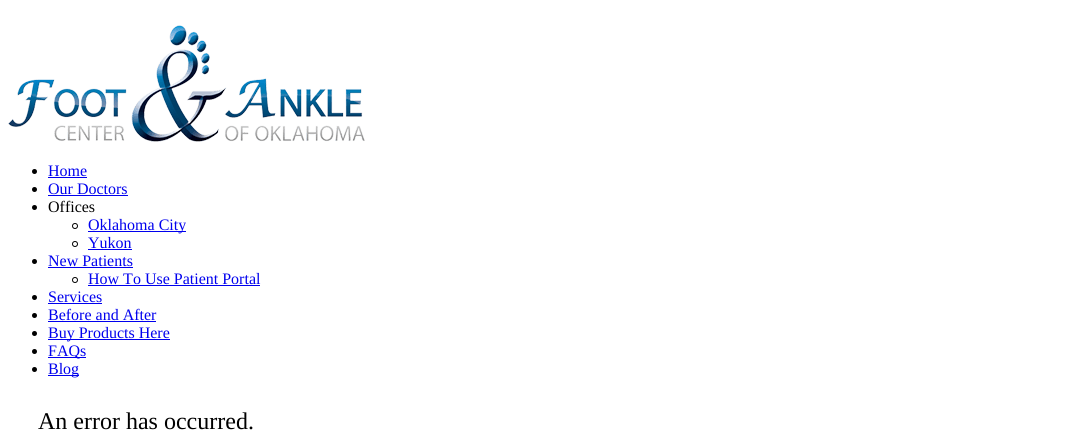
import math
import cairo


def use_color(cr, r, g, b):
  cr.set_source_rgb(r / 255, g / 255, b / 255)

def text(cr, x, y, s, family, size, color, bold=False, italic=False):
  cr.select_font_face(family, cairo.FONT_SLANT_ITALIC if italic else cairo.FONT_SLANT_NORMAL, cairo.FONT_WEIGHT_BOLD if bold else cairo.FONT_WEIGHT_NORMAL)
  cr.set_font_size(size)
  use_color(cr, *color)
  cr.move_to(x, y)
  cr.show_text(s)

def box(cr, x, y, w, h, *color):
  use_color(cr, *color)
  cr.rectangle(x, y, w, h)
  cr.fill()

def picture(cr, path, x, y, w, h):
  cr.save()
  cr.set_source_surface(cairo.ImageSurface.create_from_png(path), x, y)
  cr.rectangle(x, y, w, h)
  cr.fill()
  cr.restore()

def draw(cr):
  use_color(cr, 255, 255, 255)
  cr.paint()
  picture(cr, "img_01.png", 8, 25, 357, 117)
  use_color(cr, 0, 0, 0)
  cr.arc(34.5, 171.5, 2.5, 0, 2 * math.pi)
  cr.fill()
  box(cr, 48, 177, 39, 1, 0, 0, 238)
  use_color(cr, 0, 0, 0)
  cr.arc(34.5, 189.5, 2.5, 0, 2 * math.pi)
  cr.fill()
  box(cr, 48, 195, 80, 1, 0, 0, 238)
  use_color(cr, 0, 0, 0)
  cr.arc(34.5, 207.5, 2.5, 0, 2 * math.pi)
  cr.fill()
  cr.arc(75, 226, 2.5, 0, 2 * math.pi)
  cr.set_line_width(1)
  cr.stroke()
  box(cr, 88, 231, 98, 1, 0, 0, 238)
  cr.arc(75, 244, 2.5, 0, 2 * math.pi)
  use_color(cr, 0, 0, 0)
  cr.stroke()
  box(cr, 88, 249, 44, 1, 0, 0, 238)
  use_color(cr, 0, 0, 0)
  cr.arc(34.5, 261.5, 2.5, 0, 2 * math.pi)
  cr.fill()
  box(cr, 48, 267, 85, 1, 0, 0, 238)
  cr.arc(75, 280, 2.5, 0, 2 * math.pi)
  use_color(cr, 0, 0, 0)
  cr.stroke()
  box(cr, 88, 285, 172, 1, 0, 0, 238)
  use_color(cr, 0, 0, 0)
  cr.arc(34.5, 297.5, 2.5, 0, 2 * math.pi)
  cr.fill()
  box(cr, 48, 303, 54, 1, 0, 0, 238)
  use_color(cr, 0, 0, 0)
  cr.arc(34.5, 315.5, 2.5, 0, 2 * math.pi)
  cr.fill()
  box(cr, 48, 321, 108, 1, 0, 0, 238)
  use_color(cr, 0, 0, 0)
  cr.arc(34.5, 333.5, 2.5, 0, 2 * math.pi)
  cr.fill()
  box(cr, 48, 339, 122, 1, 0, 0, 238)
  use_color(cr, 0, 0, 0)
  cr.arc(34.5, 351.5, 2.5, 0, 2 * math.pi)
  cr.fill()
  box(cr, 48, 357, 38, 1, 0, 0, 238)
  use_color(cr, 0, 0, 0)
  cr.arc(34.5, 369.5, 2.5, 0, 2 * math.pi)
  cr.fill()
  box(cr, 48, 375, 31, 1, 0, 0, 238)
  text(cr, 48, 176, "Home", "Liberation Serif", 16, (0, 0, 238))
  text(cr, 48, 194, "Our Doctors", "Liberation Serif", 16, (0, 0, 238))
  text(cr, 48, 212, "Offices", "Liberation Serif", 16, (0, 0, 0))
  text(cr, 88, 230, "Oklahoma City", "Liberation Serif", 16, (0, 0, 238))
  text(cr, 88, 248, "Yukon", "Liberation Serif", 16, (0, 0, 238))
  text(cr, 48, 266, "New Patients", "Liberation Serif", 16, (0, 0, 238))
  text(cr, 88, 284, "How To Use Patient Portal", "Liberation Serif", 16, (0, 0, 238))
  text(cr, 48, 302, "Services", "Liberation Serif", 16, (0, 0, 238))
  text(cr, 48, 320, "Before and After", "Liberation Serif", 16, (0, 0, 238))
  text(cr, 48, 338, "Buy Products Here", "Liberation Serif", 16, (0, 0, 238))
  text(cr, 48, 356, "FAQs", "Liberation Serif", 16, (0, 0, 238))
  text(cr, 48, 374, "Blog", "Liberation Serif", 16, (0, 0, 238))
  text(cr, 38, 429, "An error has occurred.", "Liberation Serif", 24, (0, 0, 0))


surface = cairo.ImageSurface(cairo.FORMAT_RGB24, 1084, 445)
cr = cairo.Context(surface)
options = cairo.FontOptions()
options.set_hint_metrics(cairo.HINT_METRICS_OFF)
options.set_hint_style(cairo.HINT_STYLE_NONE)
cr.set_font_options(options)
cr.set_miter_limit(4)
draw(cr)
surface.write_to_png("out.png")
